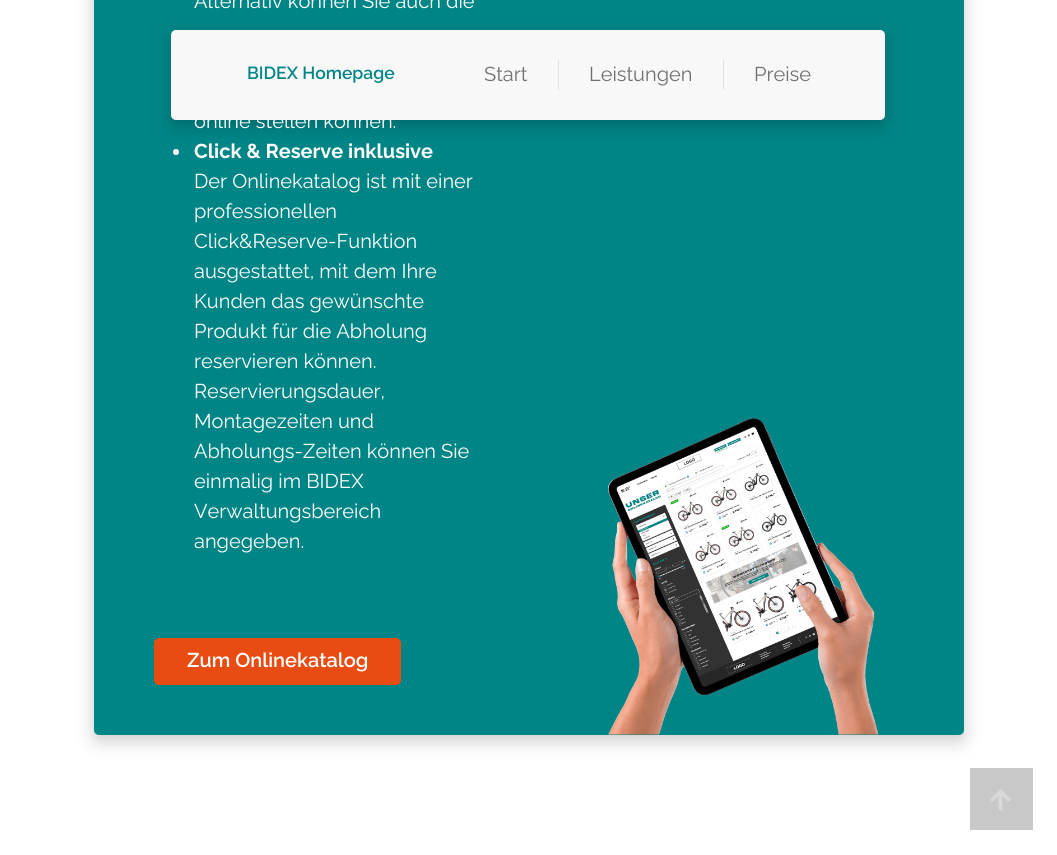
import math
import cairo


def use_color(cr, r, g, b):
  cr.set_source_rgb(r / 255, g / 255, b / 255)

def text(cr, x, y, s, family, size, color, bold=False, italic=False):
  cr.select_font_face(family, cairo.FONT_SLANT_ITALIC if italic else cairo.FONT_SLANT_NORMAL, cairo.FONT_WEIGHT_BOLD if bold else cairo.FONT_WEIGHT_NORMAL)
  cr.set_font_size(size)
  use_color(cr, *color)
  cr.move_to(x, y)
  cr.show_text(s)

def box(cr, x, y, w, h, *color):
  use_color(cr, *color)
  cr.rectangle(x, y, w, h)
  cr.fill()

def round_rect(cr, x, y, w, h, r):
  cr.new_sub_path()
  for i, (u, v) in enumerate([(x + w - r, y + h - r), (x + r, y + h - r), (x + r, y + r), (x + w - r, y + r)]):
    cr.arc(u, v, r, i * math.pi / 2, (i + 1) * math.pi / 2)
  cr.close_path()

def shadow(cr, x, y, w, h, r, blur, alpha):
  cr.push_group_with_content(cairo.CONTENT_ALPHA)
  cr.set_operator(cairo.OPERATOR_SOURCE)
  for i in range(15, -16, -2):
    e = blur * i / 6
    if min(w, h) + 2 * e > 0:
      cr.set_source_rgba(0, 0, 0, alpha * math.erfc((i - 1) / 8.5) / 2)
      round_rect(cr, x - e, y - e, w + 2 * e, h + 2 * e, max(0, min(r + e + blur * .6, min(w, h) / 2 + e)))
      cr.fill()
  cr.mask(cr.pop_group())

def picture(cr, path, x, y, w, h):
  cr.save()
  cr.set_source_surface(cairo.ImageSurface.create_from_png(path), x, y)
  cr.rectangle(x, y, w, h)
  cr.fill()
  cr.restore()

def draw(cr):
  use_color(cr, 255, 255, 255)
  cr.paint()
  use_color(cr, 0, 0, 0)
  shadow(cr, 94, -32, 870, 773, 5, 9, 0.2)
  use_color(cr, 0, 133, 134)
  round_rect(cr, 94, -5, 870, 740, 5)
  cr.fill()
  use_color(cr, 255, 255, 255)
  cr.arc(176, 152, 3, 0, 2 * math.pi)
  cr.fill()
  use_color(cr, 233, 76, 19)
  round_rect(cr, 154.5, 638.5, 246, 46, 4.5)
  cr.fill_preserve()
  cr.set_line_width(1)
  cr.stroke()
  picture(cr, "img_01.png", 607, 418, 272, 317)
  use_color(cr, 0, 0, 0)
  shadow(cr, 171, 36, 714, 90, 5, 9, 0.2)
  box(cr, 970, 768, 63, 62, 200, 200, 200)
  picture(cr, "img_02.png", 990, 789, 21, 22)
  text(cr, 194, 8, "Alternativ können Sie auch die", "Raleway", 20, (255, 255, 255))
  text(cr, 194, 128, "online stellen können.", "Raleway", 20, (255, 255, 255))
  text(cr, 194, 158, "Click & Reserve inklusive", "Raleway", 20, (255, 255, 255), bold=True)
  text(cr, 194, 188, "Der Onlinekatalog ist mit einer", "Raleway", 20, (255, 255, 255))
  text(cr, 194, 218, "professionellen", "Raleway", 20, (255, 255, 255))
  text(cr, 194, 248, "Click&Reserve-Funktion", "Raleway", 20, (255, 255, 255))
  text(cr, 194, 278, "ausgestattet, mit dem Ihre", "Raleway", 20, (255, 255, 255))
  text(cr, 194, 308, "Kunden das gewünschte", "Raleway", 20, (255, 255, 255))
  text(cr, 194, 338, "Produkt für die Abholung", "Raleway", 20, (255, 255, 255))
  text(cr, 194, 368, "reservieren können.", "Raleway", 20, (255, 255, 255))
  text(cr, 194, 398, "Reservierungsdauer,", "Raleway", 20, (255, 255, 255))
  text(cr, 194, 428, "Montagezeiten und", "Raleway", 20, (255, 255, 255))
  text(cr, 194, 458, "Abholungs-Zeiten können Sie", "Raleway", 20, (255, 255, 255))
  text(cr, 194, 488, "einmalig im BIDEX", "Raleway", 20, (255, 255, 255))
  text(cr, 194, 518, "Verwaltungsbereich", "Raleway", 20, (255, 255, 255))
  text(cr, 194, 548, "angegeben.", "Raleway", 20, (255, 255, 255))
  text(cr, 187, 667, "Zum Onlinekatalog", "Raleway SemiBold", 20, (255, 255, 255))
  use_color(cr, 248, 248, 248)
  round_rect(cr, 171, 30, 714, 90, 5)
  cr.fill()
  text(cr, 247, 79, "BIDEX Homepage", "Raleway SemiBold", 17.5, (0, 133, 134))
  box(cr, 558, 60, 1, 30, 222, 226, 230)
  text(cr, 484, 81, "Start", "Raleway", 20, (112, 112, 112))
  box(cr, 723, 60, 1, 30, 222, 226, 230)
  text(cr, 589, 81, "Leistungen", "Raleway", 20, (112, 112, 112))
  text(cr, 754, 81, "Preise", "Raleway", 20, (112, 112, 112))


surface = cairo.ImageSurface(cairo.FORMAT_RGB24, 1057, 855)
cr = cairo.Context(surface)
options = cairo.FontOptions()
options.set_hint_metrics(cairo.HINT_METRICS_OFF)
options.set_hint_style(cairo.HINT_STYLE_NONE)
cr.set_font_options(options)
cr.set_miter_limit(4)
draw(cr)
surface.write_to_png("out.png")
